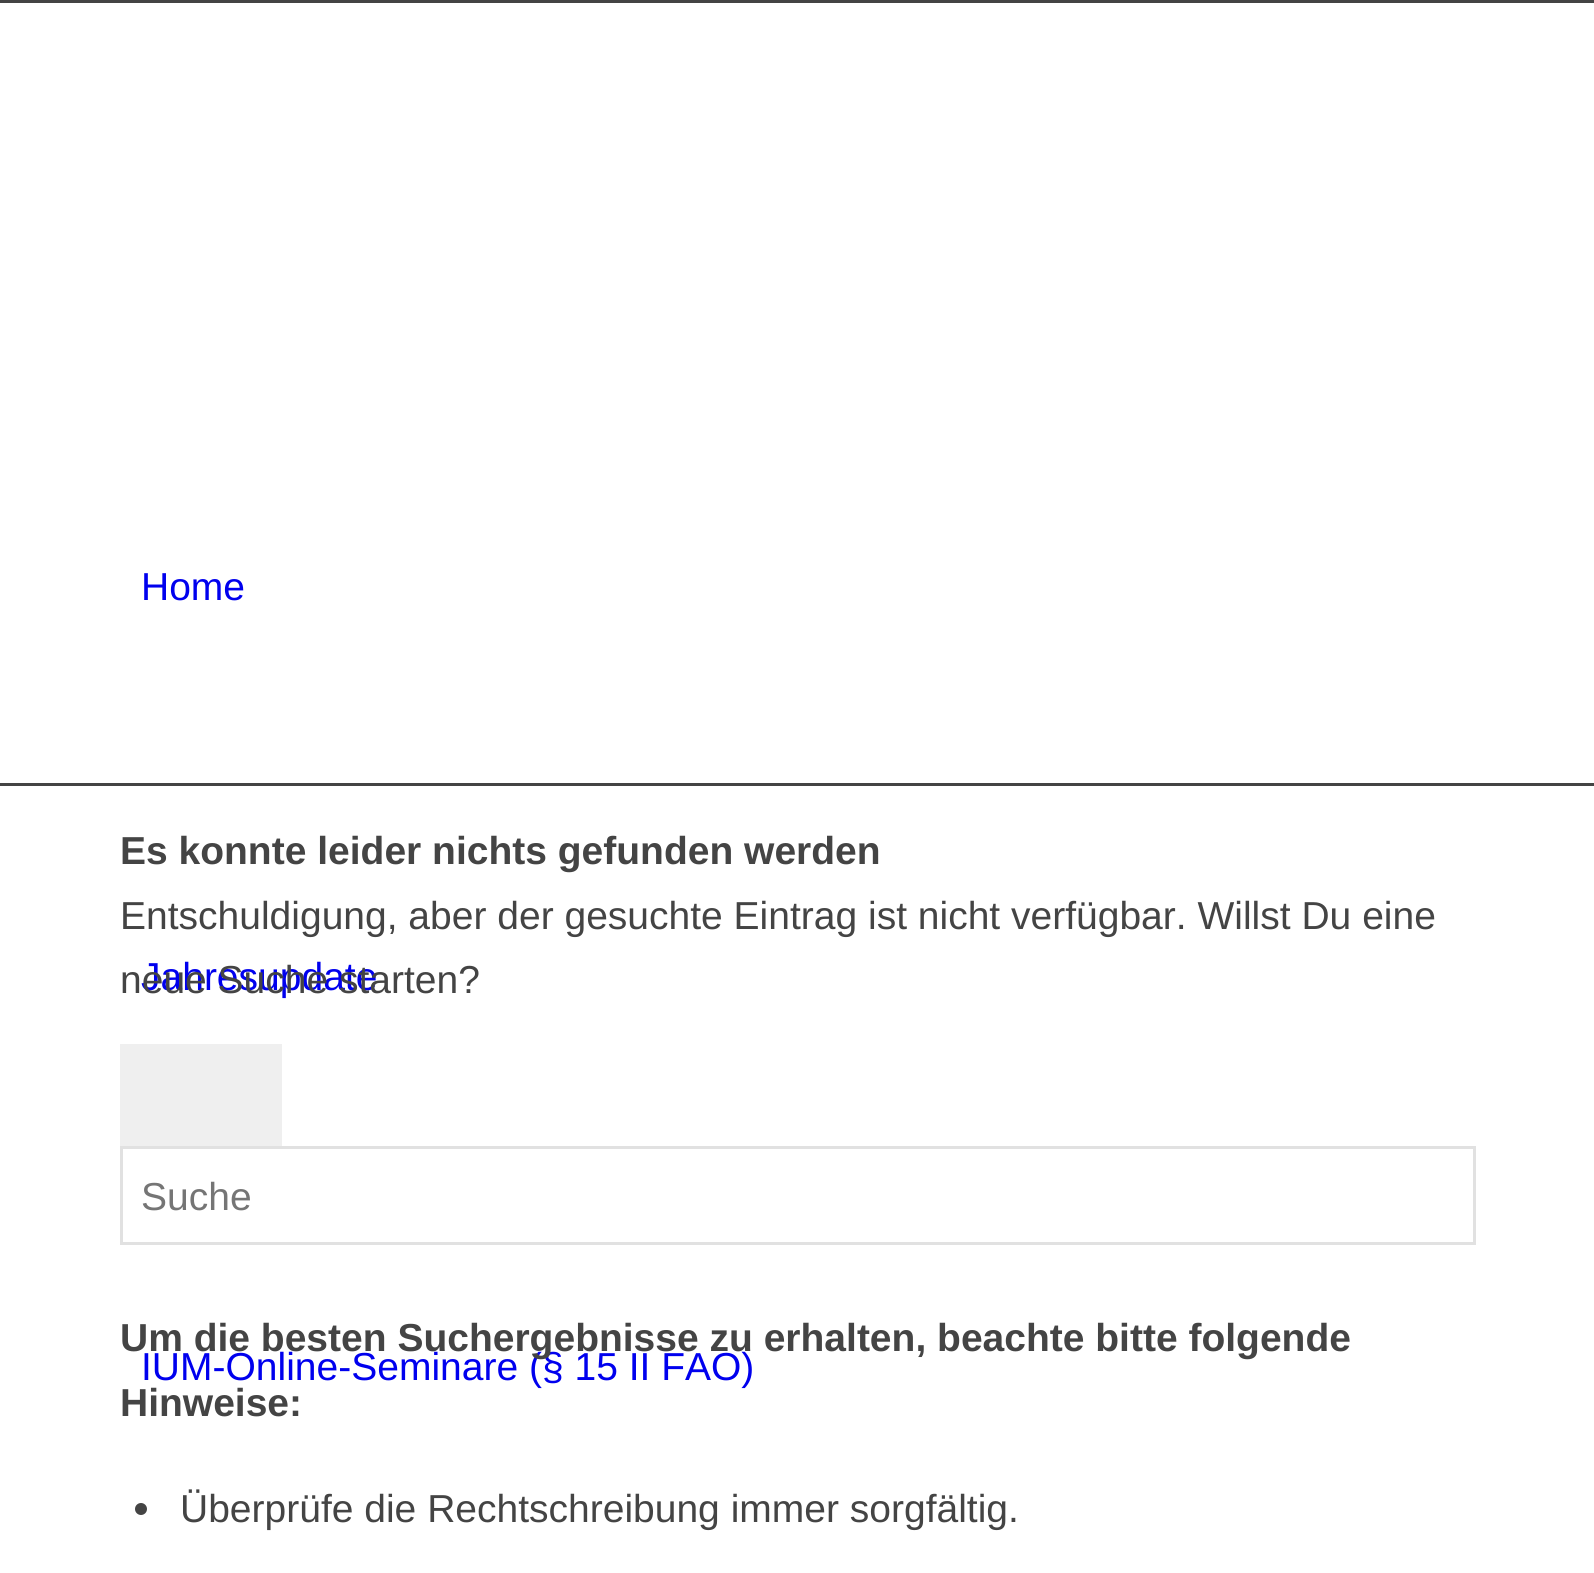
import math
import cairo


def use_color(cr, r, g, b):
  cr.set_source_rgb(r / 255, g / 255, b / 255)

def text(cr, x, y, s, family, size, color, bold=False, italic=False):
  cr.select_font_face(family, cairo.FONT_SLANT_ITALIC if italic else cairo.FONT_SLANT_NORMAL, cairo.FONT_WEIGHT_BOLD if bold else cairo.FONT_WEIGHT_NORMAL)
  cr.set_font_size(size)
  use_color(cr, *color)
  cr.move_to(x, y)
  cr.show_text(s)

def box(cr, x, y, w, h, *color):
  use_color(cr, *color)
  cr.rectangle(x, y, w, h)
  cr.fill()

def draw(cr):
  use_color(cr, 255, 255, 255)
  cr.paint()
  box(cr, 0, 0, 1594, 3, 68, 68, 68)
  box(cr, 0, 783, 1594, 3, 68, 68, 68)
  box(cr, 120, 1044, 162, 102, 239, 239, 239)
  cr.rectangle(121.5, 1147.5, 1353, 96)
  use_color(cr, 225, 225, 225)
  cr.set_line_width(3)
  cr.stroke()
  use_color(cr, 68, 68, 68)
  cr.arc(141, 1509, 6, 0, 2 * math.pi)
  cr.fill()
  text(cr, 141, 600, "Home", "Liberation Sans", 39, (0, 0, 238))
  text(cr, 141, 990, "Jahresupdate", "Liberation Sans", 39, (0, 0, 238))
  text(cr, 141, 1380, "IUM-Online-Seminare (§ 15 II FAO)", "Liberation Sans", 39, (0, 0, 238))
  text(cr, 120, 864, "Es konnte leider nichts gefunden werden", "Liberation Sans", 39, (68, 68, 68), bold=True)
  text(cr, 120, 929, "Entschuldigung, aber der gesuchte Eintrag ist nicht verfügbar. Willst Du eine", "Liberation Sans", 39, (68, 68, 68))
  text(cr, 120, 993, "neue Suche starten?", "Liberation Sans", 39, (68, 68, 68))
  text(cr, 141, 1210, "Suche", "Liberation Sans", 39, (117, 117, 117))
  text(cr, 120, 1351, "Um die besten Suchergebnisse zu erhalten, beachte bitte folgende", "Liberation Sans", 39, (68, 68, 68), bold=True)
  text(cr, 120, 1416, "Hinweise:", "Liberation Sans", 39, (68, 68, 68), bold=True)
  text(cr, 180, 1522, "Überprüfe die Rechtschreibung immer sorgfältig.", "Liberation Sans", 39, (68, 68, 68))


surface = cairo.ImageSurface(cairo.FORMAT_RGB24, 1594, 1573)
cr = cairo.Context(surface)
options = cairo.FontOptions()
options.set_hint_metrics(cairo.HINT_METRICS_OFF)
options.set_hint_style(cairo.HINT_STYLE_NONE)
cr.set_font_options(options)
cr.set_miter_limit(4)
draw(cr)
surface.write_to_png("out.png")
